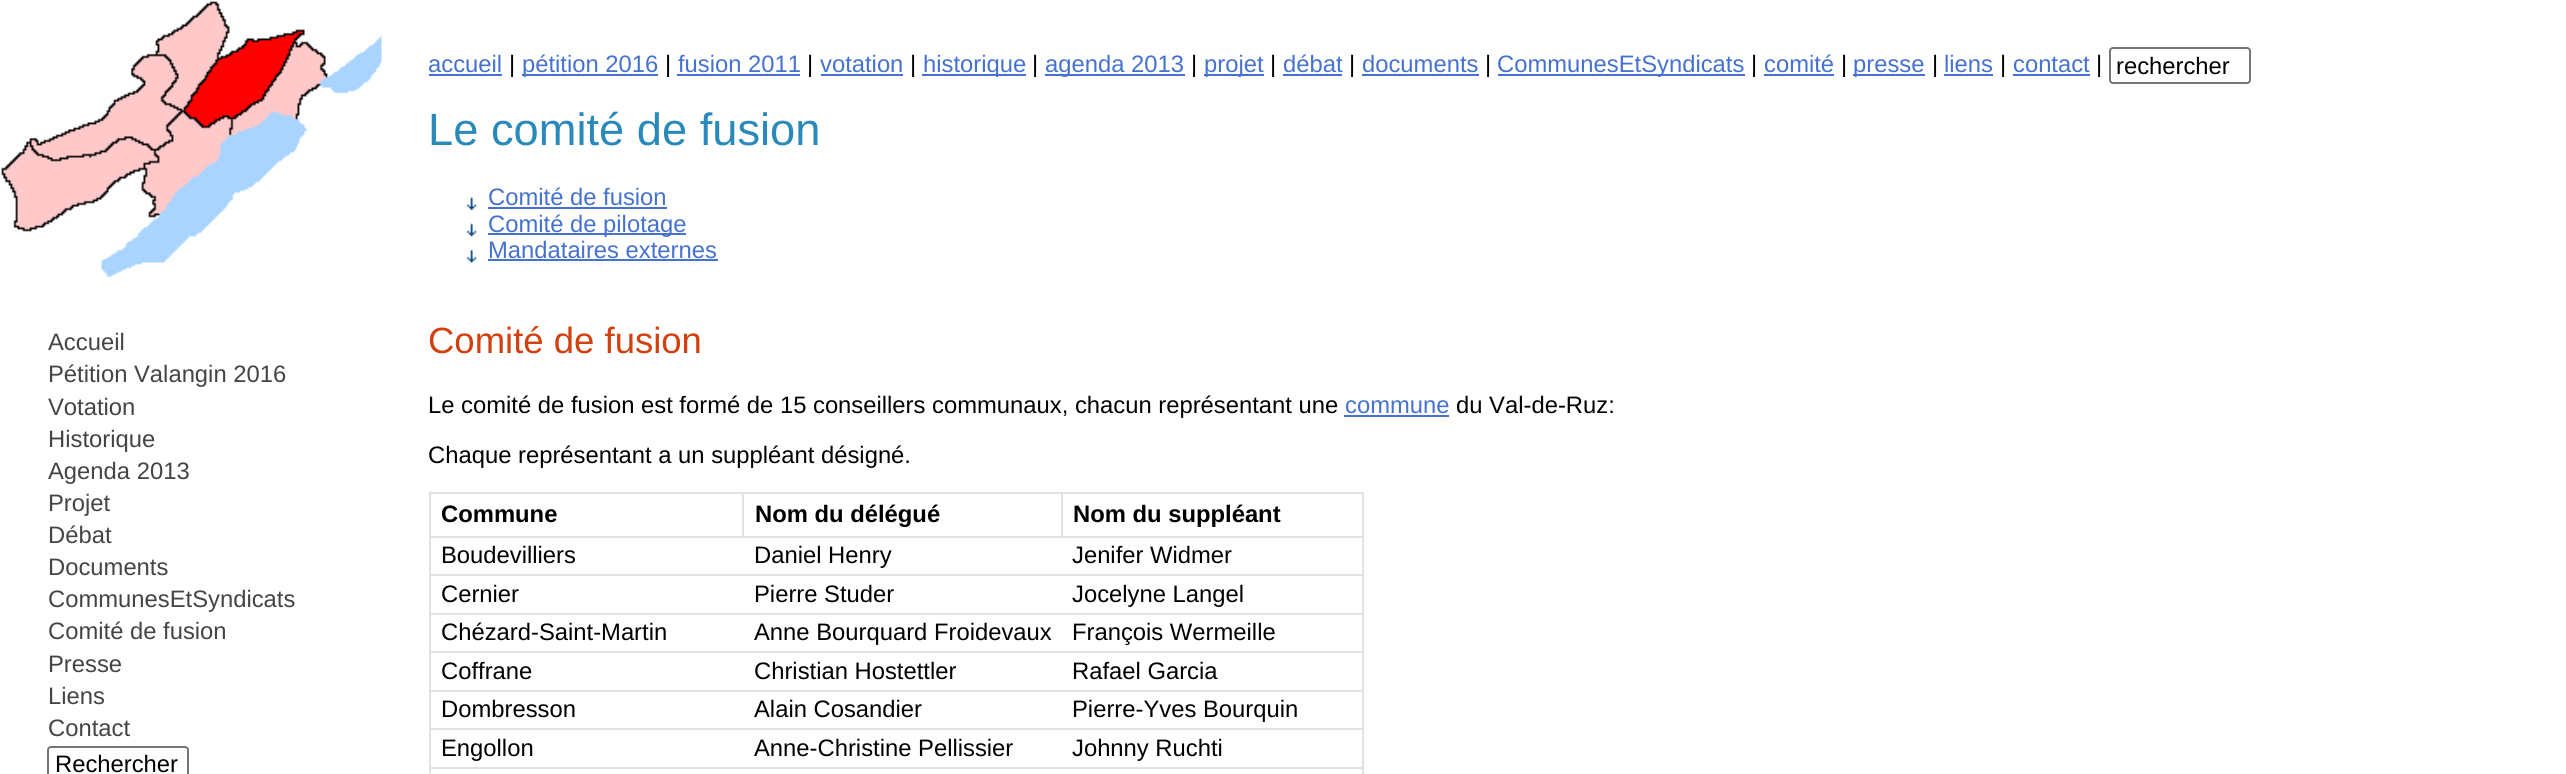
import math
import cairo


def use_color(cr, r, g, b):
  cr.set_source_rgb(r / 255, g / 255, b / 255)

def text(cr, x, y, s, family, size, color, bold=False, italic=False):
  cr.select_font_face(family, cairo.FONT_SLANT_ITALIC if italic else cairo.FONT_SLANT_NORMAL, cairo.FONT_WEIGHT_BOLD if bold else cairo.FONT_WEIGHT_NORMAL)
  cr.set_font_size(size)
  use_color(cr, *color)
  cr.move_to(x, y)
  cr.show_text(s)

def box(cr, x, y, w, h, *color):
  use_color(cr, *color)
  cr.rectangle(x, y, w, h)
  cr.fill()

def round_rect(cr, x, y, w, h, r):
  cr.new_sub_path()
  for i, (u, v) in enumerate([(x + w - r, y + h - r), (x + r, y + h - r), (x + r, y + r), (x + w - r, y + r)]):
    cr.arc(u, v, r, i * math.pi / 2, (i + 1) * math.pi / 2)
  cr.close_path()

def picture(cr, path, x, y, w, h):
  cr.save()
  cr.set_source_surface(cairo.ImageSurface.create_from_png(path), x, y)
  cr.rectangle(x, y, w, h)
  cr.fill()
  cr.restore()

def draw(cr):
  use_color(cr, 255, 255, 255)
  cr.paint()
  picture(cr, "img_01.png", 1, 1, 381, 276)
  round_rect(cr, 48, 747, 140, 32, 3)
  use_color(cr, 118, 118, 118)
  cr.stroke()
  box(cr, 429, 74, 73, 2, 69, 113, 208)
  box(cr, 522, 74, 136, 2, 69, 113, 208)
  box(cr, 677, 74, 123, 2, 69, 113, 208)
  box(cr, 821, 74, 82, 2, 69, 113, 208)
  box(cr, 922, 74, 104, 2, 69, 113, 208)
  box(cr, 1045, 74, 140, 2, 69, 113, 208)
  box(cr, 1204, 74, 60, 2, 69, 113, 208)
  box(cr, 1283, 74, 59, 2, 69, 113, 208)
  box(cr, 1362, 74, 117, 2, 69, 113, 208)
  box(cr, 1498, 74, 247, 2, 69, 113, 208)
  box(cr, 1764, 74, 70, 2, 69, 113, 208)
  box(cr, 1853, 74, 72, 2, 69, 113, 208)
  box(cr, 1944, 74, 49, 2, 69, 113, 208)
  box(cr, 2013, 74, 77, 2, 69, 113, 208)
  round_rect(cr, 2110, 48, 140, 35, 3)
  use_color(cr, 118, 118, 118)
  cr.stroke()
  picture(cr, "img_02.png", 466, 197, 11, 13)
  box(cr, 488, 207, 179, 2, 69, 113, 208)
  picture(cr, "img_03.png", 466, 223, 11, 14)
  box(cr, 488, 233, 198, 2, 69, 113, 208)
  picture(cr, "img_04.png", 466, 249, 11, 14)
  box(cr, 488, 259, 230, 2, 69, 113, 208)
  box(cr, 1344, 415, 105, 2, 69, 113, 208)
  box(cr, 429, 492, 934, 2, 226, 226, 226)
  box(cr, 1362, 492, 2, 282, 226, 226, 226)
  box(cr, 429, 492, 2, 282, 226, 226, 226)
  box(cr, 429, 536, 934, 2, 226, 226, 226)
  box(cr, 742, 492, 2, 45, 226, 226, 226)
  box(cr, 1061, 492, 2, 45, 226, 226, 226)
  box(cr, 429, 574, 934, 2, 226, 226, 226)
  box(cr, 429, 613, 934, 2, 226, 226, 226)
  box(cr, 429, 651, 934, 2, 226, 226, 226)
  box(cr, 429, 690, 934, 2, 226, 226, 226)
  box(cr, 429, 728, 934, 2, 226, 226, 226)
  box(cr, 429, 767, 934, 2, 226, 226, 226)
  text(cr, 48, 350, "Accueil", "Liberation Sans", 23.8, (68, 68, 68))
  text(cr, 48, 382, "Pétition Valangin 2016", "Liberation Sans", 23.8, (68, 68, 68))
  text(cr, 48, 415, "Votation", "Liberation Sans", 23.8, (68, 68, 68))
  text(cr, 48, 447, "Historique", "Liberation Sans", 23.8, (68, 68, 68))
  text(cr, 48, 479, "Agenda 2013", "Liberation Sans", 23.8, (68, 68, 68))
  text(cr, 48, 511, "Projet", "Liberation Sans", 23.8, (68, 68, 68))
  text(cr, 48, 543, "Débat", "Liberation Sans", 23.8, (68, 68, 68))
  text(cr, 48, 575, "Documents", "Liberation Sans", 23.8, (68, 68, 68))
  text(cr, 48, 607, "CommunesEtSyndicats", "Liberation Sans", 23.8, (68, 68, 68))
  text(cr, 48, 639, "Comité de fusion", "Liberation Sans", 23.8, (68, 68, 68))
  text(cr, 48, 672, "Presse", "Liberation Sans", 23.8, (68, 68, 68))
  text(cr, 48, 704, "Liens", "Liberation Sans", 23.8, (68, 68, 68))
  text(cr, 48, 736, "Contact", "Liberation Sans", 23.8, (68, 68, 68))
  text(cr, 55, 772, "Rechercher", "Liberation Sans", 23.8, (0, 0, 0))
  text(cr, 428, 72, "accueil", "Liberation Sans", 23.8, (69, 113, 208))
  text(cr, 509, 72, "|", "Liberation Sans", 23.8, (0, 0, 0))
  text(cr, 522, 72, "pétition 2016", "Liberation Sans", 23.8, (69, 113, 208))
  text(cr, 665, 72, "|", "Liberation Sans", 23.8, (0, 0, 0))
  text(cr, 678, 72, "fusion 2011", "Liberation Sans", 23.8, (69, 113, 208))
  text(cr, 807, 72, "|", "Liberation Sans", 23.8, (0, 0, 0))
  text(cr, 820, 72, "votation", "Liberation Sans", 23.8, (69, 113, 208))
  text(cr, 910, 72, "|", "Liberation Sans", 23.8, (0, 0, 0))
  text(cr, 923, 72, "historique", "Liberation Sans", 23.8, (69, 113, 208))
  text(cr, 1032, 72, "|", "Liberation Sans", 23.8, (0, 0, 0))
  text(cr, 1045, 72, "agenda 2013", "Liberation Sans", 23.8, (69, 113, 208))
  text(cr, 1191, 72, "|", "Liberation Sans", 23.8, (0, 0, 0))
  text(cr, 1204, 72, "projet", "Liberation Sans", 23.8, (69, 113, 208))
  text(cr, 1270, 72, "|", "Liberation Sans", 23.8, (0, 0, 0))
  text(cr, 1283, 72, "débat", "Liberation Sans", 23.8, (69, 113, 208))
  text(cr, 1349, 72, "|", "Liberation Sans", 23.8, (0, 0, 0))
  text(cr, 1362, 72, "documents", "Liberation Sans", 23.8, (69, 113, 208))
  text(cr, 1485, 72, "|", "Liberation Sans", 23.8, (0, 0, 0))
  text(cr, 1497, 72, "CommunesEtSyndicats", "Liberation Sans", 23.8, (69, 113, 208))
  text(cr, 1751, 72, "|", "Liberation Sans", 23.8, (0, 0, 0))
  text(cr, 1764, 72, "comité", "Liberation Sans", 23.8, (69, 113, 208))
  text(cr, 1841, 72, "|", "Liberation Sans", 23.8, (0, 0, 0))
  text(cr, 1853, 72, "presse", "Liberation Sans", 23.8, (69, 113, 208))
  text(cr, 1932, 72, "|", "Liberation Sans", 23.8, (0, 0, 0))
  text(cr, 1944, 72, "liens", "Liberation Sans", 23.8, (69, 113, 208))
  text(cr, 2000, 72, "|", "Liberation Sans", 23.8, (0, 0, 0))
  text(cr, 2013, 72, "contact", "Liberation Sans", 23.8, (69, 113, 208))
  text(cr, 2096, 72, "|", "Liberation Sans", 23.8, (0, 0, 0))
  text(cr, 2116, 74, "rechercher", "Liberation Sans", 23.8, (0, 0, 0))
  text(cr, 428, 145, "Le comité de fusion", "Liberation Sans", 45.25, (41, 137, 187))
  text(cr, 488, 205, "Comité de fusion", "Liberation Sans", 23.8, (69, 113, 208))
  text(cr, 488, 232, "Comité de pilotage", "Liberation Sans", 23.8, (69, 113, 208))
  text(cr, 488, 258, "Mandataires externes", "Liberation Sans", 23.8, (69, 113, 208))
  text(cr, 428, 353, "Comité de fusion", "Liberation Sans", 36.5, (209, 64, 14))
  text(cr, 428, 413, "Le comité de fusion est formé de 15 conseillers communaux, chacun représentant une", "Liberation Sans", 23.8, (0, 0, 0))
  text(cr, 1345, 413, "commune", "Liberation Sans", 23.8, (69, 113, 208))
  text(cr, 1456, 413, "du Val-de-Ruz:", "Liberation Sans", 23.8, (0, 0, 0))
  text(cr, 428, 463, "Chaque représentant a un suppléant désigné.", "Liberation Sans", 23.8, (0, 0, 0))
  text(cr, 441, 522, "Commune", "Liberation Sans", 23.8, (0, 0, 0), bold=True)
  text(cr, 755, 522, "Nom du délégué", "Liberation Sans", 23.8, (0, 0, 0), bold=True)
  text(cr, 1073, 522, "Nom du suppléant", "Liberation Sans", 23.8, (0, 0, 0), bold=True)
  text(cr, 441, 563, "Boudevilliers", "Liberation Sans", 23.8, (0, 0, 0))
  text(cr, 754, 563, "Daniel Henry", "Liberation Sans", 23.8, (0, 0, 0))
  text(cr, 1072, 563, "Jenifer Widmer", "Liberation Sans", 23.8, (0, 0, 0))
  text(cr, 441, 602, "Cernier", "Liberation Sans", 23.8, (0, 0, 0))
  text(cr, 754, 602, "Pierre Studer", "Liberation Sans", 23.8, (0, 0, 0))
  text(cr, 1072, 602, "Jocelyne Langel", "Liberation Sans", 23.8, (0, 0, 0))
  text(cr, 441, 640, "Chézard-Saint-Martin", "Liberation Sans", 23.8, (0, 0, 0))
  text(cr, 754, 640, "Anne Bourquard Froidevaux", "Liberation Sans", 23.8, (0, 0, 0))
  text(cr, 1072, 640, "François Wermeille", "Liberation Sans", 23.8, (0, 0, 0))
  text(cr, 441, 679, "Coffrane", "Liberation Sans", 23.8, (0, 0, 0))
  text(cr, 754, 679, "Christian Hostettler", "Liberation Sans", 23.8, (0, 0, 0))
  text(cr, 1072, 679, "Rafael Garcia", "Liberation Sans", 23.8, (0, 0, 0))
  text(cr, 441, 717, "Dombresson", "Liberation Sans", 23.8, (0, 0, 0))
  text(cr, 754, 717, "Alain Cosandier", "Liberation Sans", 23.8, (0, 0, 0))
  text(cr, 1072, 717, "Pierre-Yves Bourquin", "Liberation Sans", 23.8, (0, 0, 0))
  text(cr, 441, 756, "Engollon", "Liberation Sans", 23.8, (0, 0, 0))
  text(cr, 754, 756, "Anne-Christine Pellissier", "Liberation Sans", 23.8, (0, 0, 0))
  text(cr, 1072, 756, "Johnny Ruchti", "Liberation Sans", 23.8, (0, 0, 0))


surface = cairo.ImageSurface(cairo.FORMAT_RGB24, 2566, 774)
cr = cairo.Context(surface)
options = cairo.FontOptions()
options.set_hint_metrics(cairo.HINT_METRICS_OFF)
options.set_hint_style(cairo.HINT_STYLE_NONE)
cr.set_font_options(options)
cr.set_miter_limit(4)
draw(cr)
surface.write_to_png("out.png")
